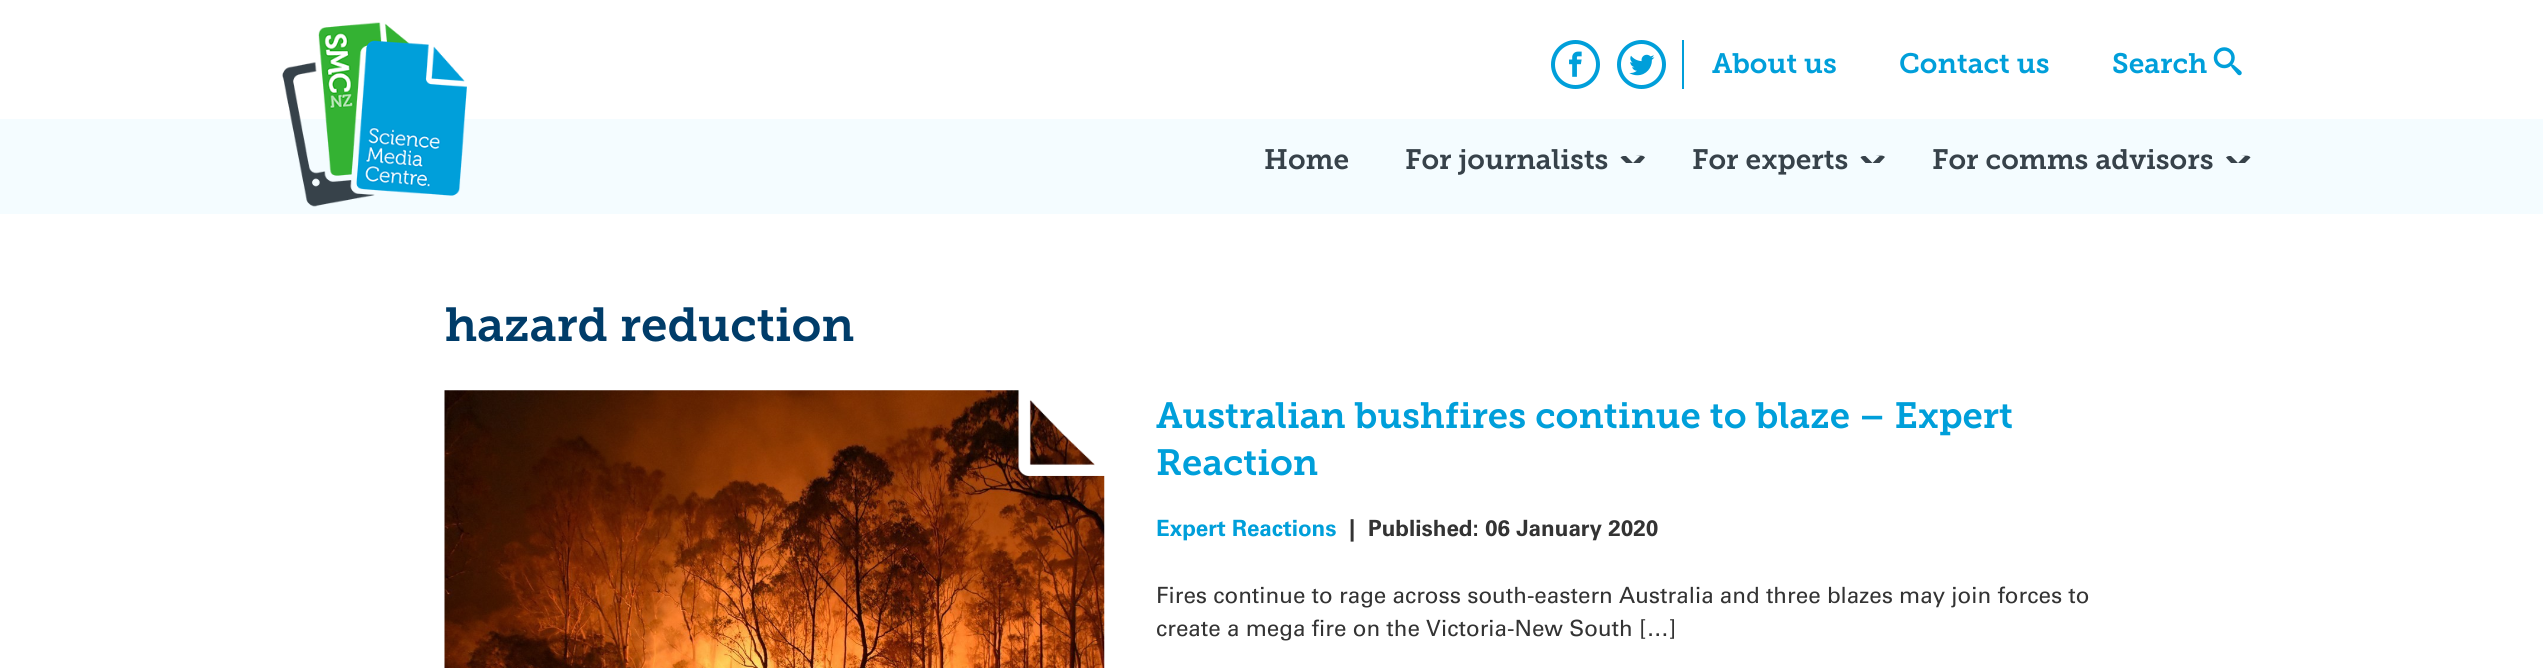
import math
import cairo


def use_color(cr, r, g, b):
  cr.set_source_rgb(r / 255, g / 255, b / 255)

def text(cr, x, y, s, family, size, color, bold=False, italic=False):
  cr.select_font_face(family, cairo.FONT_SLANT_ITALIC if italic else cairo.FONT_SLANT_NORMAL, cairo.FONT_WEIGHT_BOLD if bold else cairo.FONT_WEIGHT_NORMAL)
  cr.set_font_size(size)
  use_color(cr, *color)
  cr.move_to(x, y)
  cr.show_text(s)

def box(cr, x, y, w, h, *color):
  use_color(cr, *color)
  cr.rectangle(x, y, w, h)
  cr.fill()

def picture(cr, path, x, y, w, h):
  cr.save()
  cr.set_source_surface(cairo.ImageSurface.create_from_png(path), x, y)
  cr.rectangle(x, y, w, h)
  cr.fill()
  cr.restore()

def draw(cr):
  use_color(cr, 255, 255, 255)
  cr.paint()
  box(cr, 0, 119, 2543, 95, 244, 252, 255)
  picture(cr, "img_01.png", 282, 22, 185, 185)
  box(cr, 1682, 40, 2, 49, 0, 159, 218)
  cr.arc(1575.5, 64.5, 22.5, 0, 2 * math.pi)
  cr.set_line_width(4)
  cr.stroke()
  picture(cr, "img_02.png", 1569, 51, 13, 26)
  cr.arc(1641.5, 64.5, 22.5, 0, 2 * math.pi)
  cr.stroke()
  picture(cr, "img_03.png", 1629, 54, 26, 22)
  picture(cr, "img_04.png", 2213, 47, 29, 29)
  use_color(cr, 55, 66, 74)
  cr.new_path()
  cr.move_to(1624, 156)
  cr.curve_to(1622.5, 156, 1621.5, 156.5, 1620.5, 157.5)
  cr.line_to(1626, 163)
  cr.line_to(1640, 163)
  cr.line_to(1645, 157.5)
  cr.curve_to(1643, 154.5, 1638.5, 156, 1635.5, 156)
  cr.close_path()
  cr.fill()
  use_color(cr, 244, 252, 255)
  cr.new_path()
  cr.move_to(1626, 156)
  cr.line_to(1640, 156)
  cr.line_to(1633, 163)
  cr.close_path()
  cr.fill()
  use_color(cr, 55, 66, 74)
  cr.new_path()
  cr.move_to(1864, 156)
  cr.curve_to(1862.5, 156, 1861, 156.5, 1860.5, 157.5)
  cr.line_to(1865.5, 163)
  cr.line_to(1879.5, 163)
  cr.line_to(1885, 157)
  cr.curve_to(1882.5, 154.5, 1878.5, 156, 1875.5, 156)
  cr.close_path()
  cr.fill()
  use_color(cr, 244, 252, 255)
  cr.new_path()
  cr.move_to(1865.5, 156)
  cr.line_to(1879.5, 156)
  cr.line_to(1872.5, 163)
  cr.close_path()
  cr.fill()
  use_color(cr, 55, 66, 74)
  cr.new_path()
  cr.move_to(2229.5, 156)
  cr.curve_to(2228, 156, 2227, 156.5, 2226, 157.5)
  cr.line_to(2231, 163)
  cr.line_to(2245, 163)
  cr.line_to(2250.5, 157.5)
  cr.curve_to(2248.5, 154.5, 2244, 156, 2241, 156)
  cr.close_path()
  cr.fill()
  use_color(cr, 244, 252, 255)
  cr.new_path()
  cr.move_to(2231, 156)
  cr.line_to(2245, 156)
  cr.line_to(2238, 163)
  cr.close_path()
  cr.fill()
  picture(cr, "img_05.png", 444, 390, 661, 278)
  picture(cr, "img_06.png", 1018, 390, 87, 86)
  text(cr, 1712, 73, "About us", "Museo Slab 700 SemiBold", 28, (0, 159, 218))
  text(cr, 1899, 73, "Contact us", "Museo Slab 700 SemiBold", 28, (0, 159, 218))
  text(cr, 2112, 73, "Search", "Museo Slab 700 SemiBold", 28, (0, 159, 218))
  text(cr, 1264, 169, "Home", "Museo Slab 700 SemiBold", 28, (55, 66, 74))
  text(cr, 1405, 169, "For journalists", "Museo Slab 700 SemiBold", 28, (55, 66, 74))
  text(cr, 1692, 169, "For experts", "Museo Slab 700 SemiBold", 28, (55, 66, 74))
  text(cr, 1932, 169, "For comms advisors", "Museo Slab 700 SemiBold", 28, (55, 66, 74))
  text(cr, 445, 341, "hazard reduction", "Museo Slab 700 SemiBold", 47.5, (0, 60, 105))
  text(cr, 1156, 428, "Australian bushfires continue to blaze – Expert", "Museo Slab 700 SemiBold", 36.4, (0, 159, 218))
  text(cr, 1156, 475, "Reaction", "Museo Slab 700 SemiBold", 36.4, (0, 159, 218))
  text(cr, 1156, 536, "Expert Reactions", "Univers", 22.4, (0, 159, 218))
  text(cr, 1349, 536, "|", "Univers", 22.4, (51, 51, 51))
  text(cr, 1368, 536, "Published: 06 January 2020", "Univers", 22.4, (51, 51, 51))
  text(cr, 1156, 603, "Fires continue to rage across south-eastern Australia and three blazes may join forces to", "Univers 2", 22.4, (51, 51, 51))
  text(cr, 1156, 636, "create a mega fire on the Victoria-New South […]", "Univers 2", 22.4, (51, 51, 51))


surface = cairo.ImageSurface(cairo.FORMAT_RGB24, 2543, 668)
cr = cairo.Context(surface)
options = cairo.FontOptions()
options.set_hint_metrics(cairo.HINT_METRICS_OFF)
options.set_hint_style(cairo.HINT_STYLE_NONE)
cr.set_font_options(options)
cr.set_miter_limit(4)
draw(cr)
surface.write_to_png("out.png")
